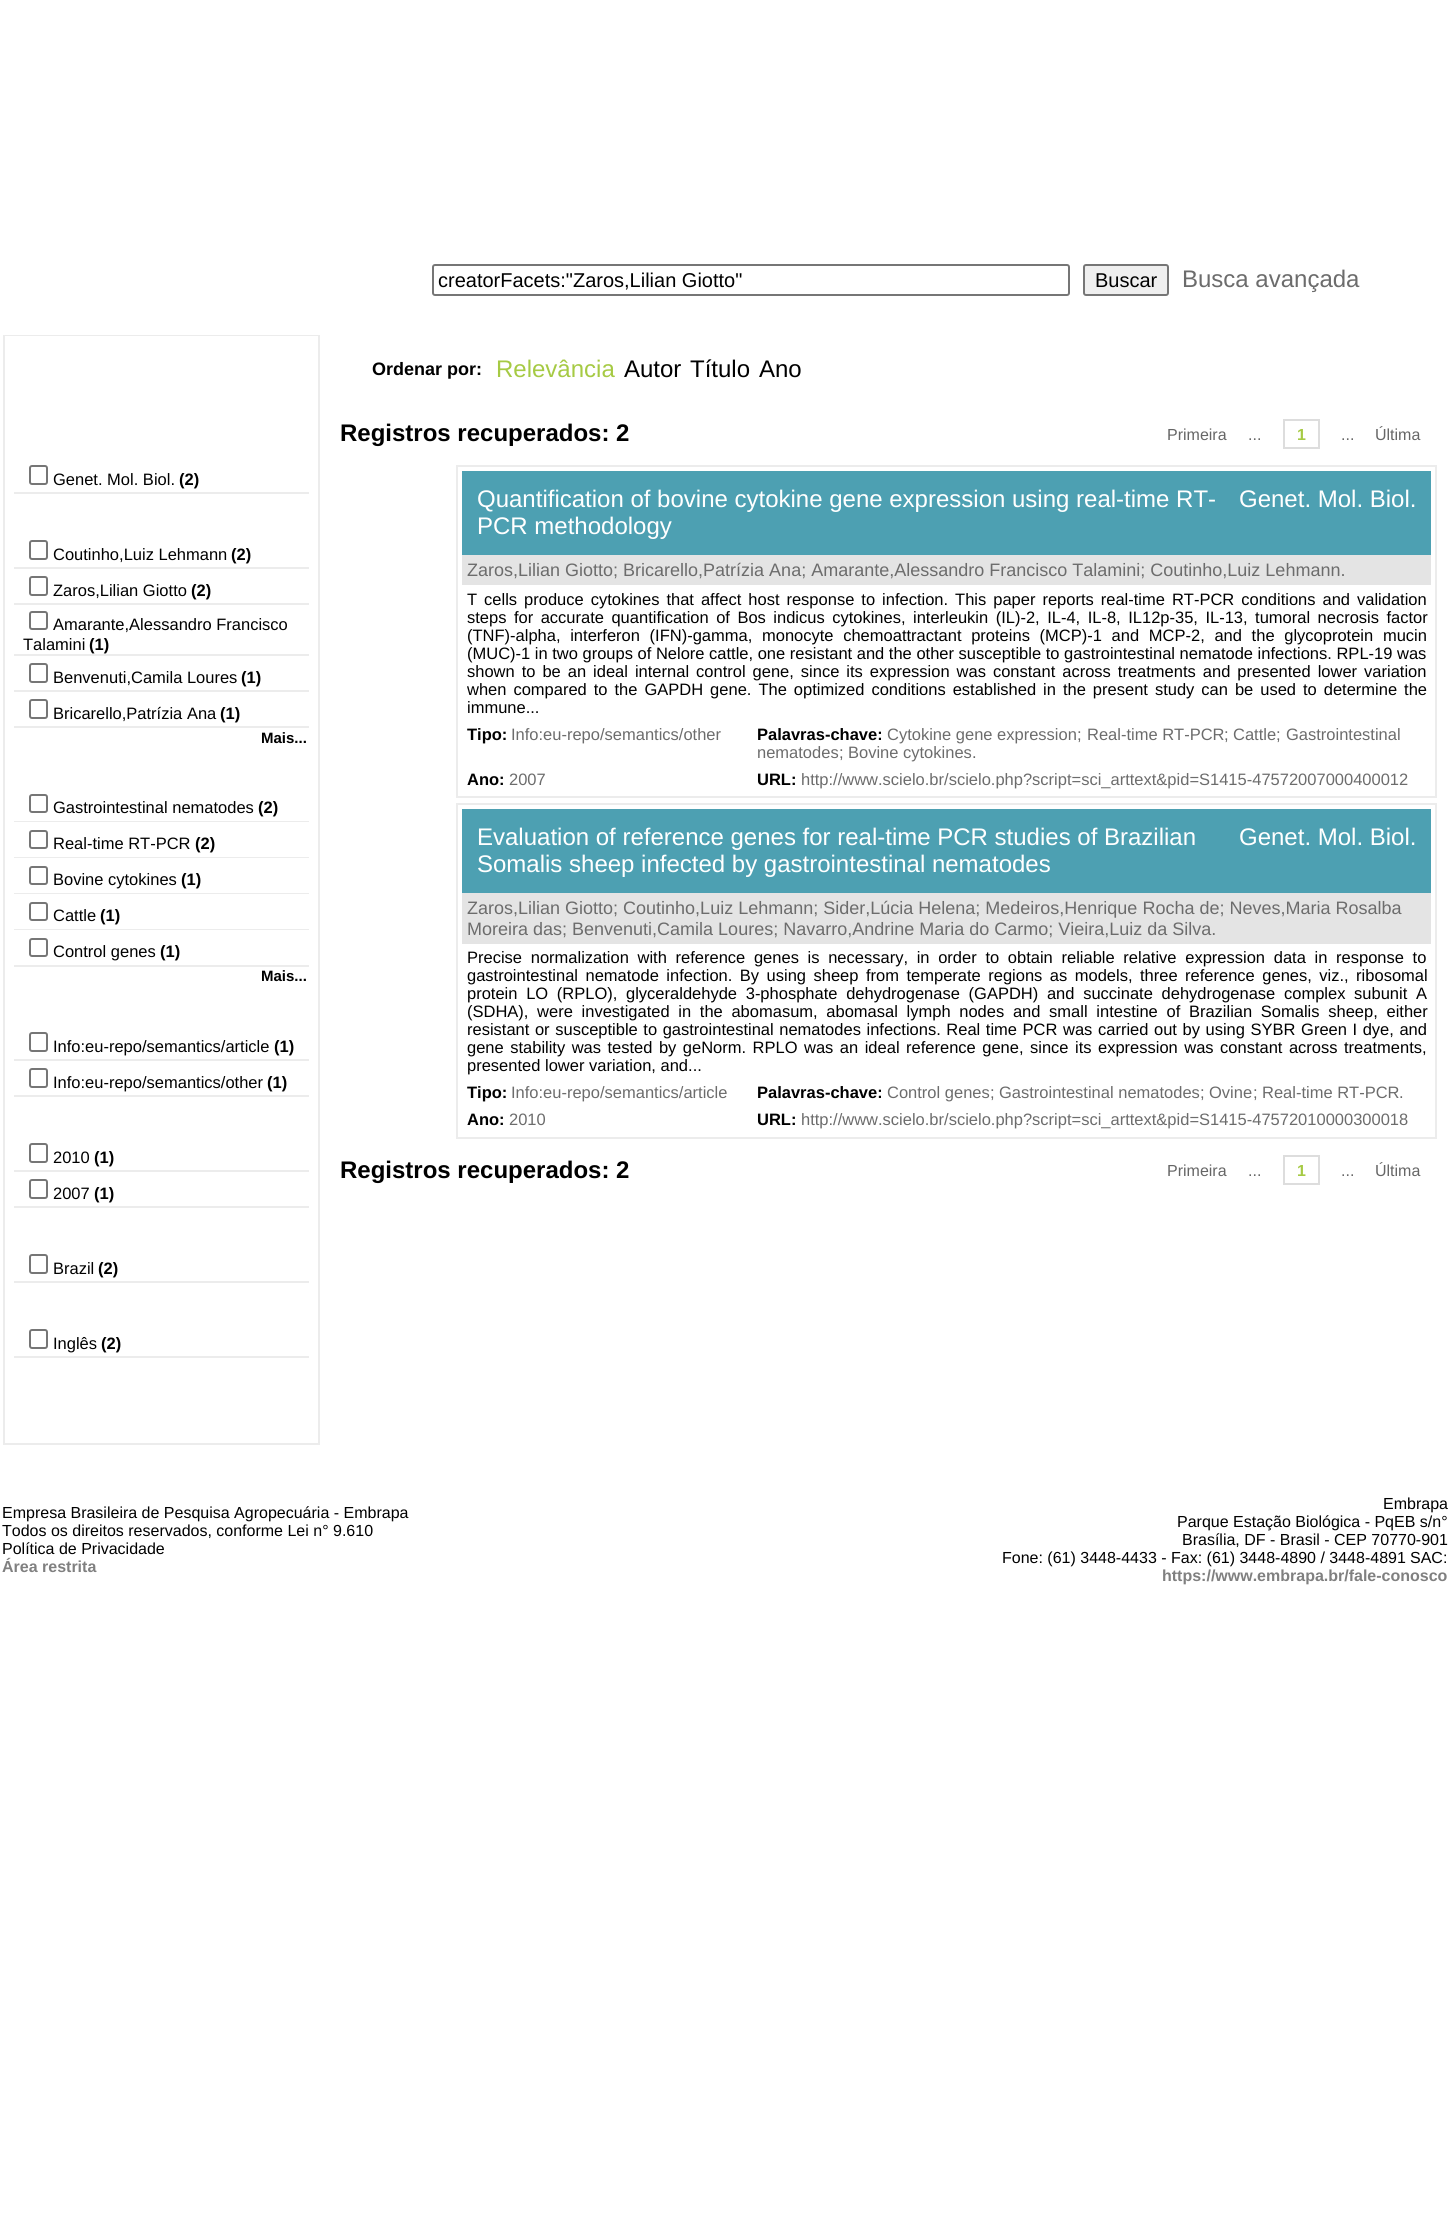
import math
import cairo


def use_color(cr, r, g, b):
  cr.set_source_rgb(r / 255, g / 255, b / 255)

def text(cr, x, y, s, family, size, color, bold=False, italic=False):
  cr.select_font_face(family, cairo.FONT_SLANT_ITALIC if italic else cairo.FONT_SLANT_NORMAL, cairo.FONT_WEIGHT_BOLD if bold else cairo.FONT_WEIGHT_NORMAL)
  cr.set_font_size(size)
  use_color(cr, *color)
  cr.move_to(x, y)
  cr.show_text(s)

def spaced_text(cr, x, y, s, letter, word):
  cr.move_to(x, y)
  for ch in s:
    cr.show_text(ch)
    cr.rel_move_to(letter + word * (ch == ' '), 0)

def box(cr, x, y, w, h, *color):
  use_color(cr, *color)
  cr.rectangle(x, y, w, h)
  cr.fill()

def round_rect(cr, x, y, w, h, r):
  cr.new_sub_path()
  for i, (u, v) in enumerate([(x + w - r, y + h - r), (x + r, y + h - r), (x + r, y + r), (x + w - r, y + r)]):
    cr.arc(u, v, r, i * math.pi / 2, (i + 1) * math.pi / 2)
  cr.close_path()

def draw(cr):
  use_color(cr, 255, 255, 255)
  cr.paint()
  round_rect(cr, 433, 265, 636, 30, 2)
  use_color(cr, 118, 118, 118)
  cr.stroke()
  use_color(cr, 239, 239, 239)
  round_rect(cr, 1084, 265, 84, 30, 2)
  cr.fill_preserve()
  use_color(cr, 118, 118, 118)
  cr.stroke()
  box(cr, 3, 335, 317, 1110, 236, 236, 236)
  box(cr, 5, 336, 313, 1107, 255, 255, 255)
  box(cr, 14, 492, 295, 2, 236, 236, 236)
  round_rect(cr, 30, 466, 17, 18, 2)
  use_color(cr, 118, 118, 118)
  cr.stroke()
  box(cr, 14, 567, 295, 2, 236, 236, 236)
  round_rect(cr, 30, 541, 17, 18, 2)
  use_color(cr, 118, 118, 118)
  cr.stroke()
  box(cr, 14, 603, 295, 2, 236, 236, 236)
  round_rect(cr, 30, 577, 17, 18, 2)
  use_color(cr, 118, 118, 118)
  cr.stroke()
  box(cr, 14, 654, 295, 2, 236, 236, 236)
  round_rect(cr, 30, 612, 17, 17, 2)
  use_color(cr, 118, 118, 118)
  cr.stroke()
  box(cr, 14, 690, 295, 2, 236, 236, 236)
  round_rect(cr, 30, 664, 17, 18, 2)
  use_color(cr, 118, 118, 118)
  cr.stroke()
  box(cr, 14, 726, 295, 2, 236, 236, 236)
  round_rect(cr, 30, 700, 17, 18, 2)
  use_color(cr, 118, 118, 118)
  cr.stroke()
  box(cr, 14, 821, 295, 1, 236, 236, 236)
  round_rect(cr, 30, 795, 17, 17, 2)
  use_color(cr, 118, 118, 118)
  cr.stroke()
  box(cr, 14, 857, 295, 1, 236, 236, 236)
  round_rect(cr, 30, 831, 17, 17, 2)
  use_color(cr, 118, 118, 118)
  cr.stroke()
  box(cr, 14, 893, 295, 1, 236, 236, 236)
  round_rect(cr, 30, 867, 17, 17, 2)
  use_color(cr, 118, 118, 118)
  cr.stroke()
  box(cr, 14, 929, 295, 1, 236, 236, 236)
  round_rect(cr, 30, 903, 17, 17, 2)
  use_color(cr, 118, 118, 118)
  cr.stroke()
  box(cr, 14, 965, 295, 2, 236, 236, 236)
  round_rect(cr, 30, 939, 17, 17, 2)
  use_color(cr, 118, 118, 118)
  cr.stroke()
  box(cr, 14, 1059, 295, 2, 236, 236, 236)
  round_rect(cr, 30, 1033, 17, 18, 2)
  use_color(cr, 118, 118, 118)
  cr.stroke()
  box(cr, 14, 1095, 295, 2, 236, 236, 236)
  round_rect(cr, 30, 1069, 17, 18, 2)
  use_color(cr, 118, 118, 118)
  cr.stroke()
  box(cr, 14, 1170, 295, 2, 236, 236, 236)
  round_rect(cr, 30, 1144, 17, 18, 2)
  use_color(cr, 118, 118, 118)
  cr.stroke()
  box(cr, 14, 1206, 295, 2, 236, 236, 236)
  round_rect(cr, 30, 1180, 17, 18, 2)
  use_color(cr, 118, 118, 118)
  cr.stroke()
  box(cr, 14, 1281, 295, 2, 236, 236, 236)
  round_rect(cr, 30, 1255, 17, 18, 2)
  use_color(cr, 118, 118, 118)
  cr.stroke()
  box(cr, 14, 1356, 295, 2, 236, 236, 236)
  round_rect(cr, 30, 1330, 17, 18, 2)
  use_color(cr, 118, 118, 118)
  cr.stroke()
  cr.rectangle(1284, 420, 35, 28)
  use_color(cr, 221, 221, 221)
  cr.stroke()
  cr.rectangle(457, 466, 979, 331)
  use_color(cr, 236, 236, 236)
  cr.stroke()
  box(cr, 462, 471, 969, 84, 77, 160, 178)
  box(cr, 462, 555, 969, 30, 228, 228, 228)
  cr.rectangle(457, 804, 979, 334)
  use_color(cr, 236, 236, 236)
  cr.stroke()
  box(cr, 462, 809, 969, 84, 77, 160, 178)
  box(cr, 462, 893, 969, 51, 228, 228, 228)
  cr.rectangle(1284, 1156, 35, 28)
  use_color(cr, 221, 221, 221)
  cr.stroke()
  text(cr, 438, 287, "creatorFacets:\"Zaros,Lilian Giotto\"", "Liberation Sans", 20, (0, 0, 0))
  text(cr, 1095, 287, "Buscar", "Liberation Sans", 20, (0, 0, 0))
  text(cr, 1182, 287, "Busca avançada", "Liberation Sans", 24, (108, 108, 108))
  text(cr, 53, 485, "Genet. Mol. Biol.", "Liberation Sans", 16.5, (0, 0, 0))
  text(cr, 179, 485, "(2)", "Liberation Sans", 16.5, (0, 0, 0), bold=True)
  text(cr, 53, 560, "Coutinho,Luiz Lehmann", "Liberation Sans", 16.5, (0, 0, 0))
  text(cr, 231, 560, "(2)", "Liberation Sans", 16.5, (0, 0, 0), bold=True)
  text(cr, 53, 596, "Zaros,Lilian Giotto", "Liberation Sans", 16.5, (0, 0, 0))
  text(cr, 191, 596, "(2)", "Liberation Sans", 16.5, (0, 0, 0), bold=True)
  text(cr, 53, 630, "Amarante,Alessandro Francisco", "Liberation Sans", 16.5, (0, 0, 0))
  text(cr, 23, 650, "Talamini", "Liberation Sans", 16.5, (0, 0, 0))
  text(cr, 89, 650, "(1)", "Liberation Sans", 16.5, (0, 0, 0), bold=True)
  text(cr, 53, 683, "Benvenuti,Camila Loures", "Liberation Sans", 16.5, (0, 0, 0))
  text(cr, 241, 683, "(1)", "Liberation Sans", 16.5, (0, 0, 0), bold=True)
  text(cr, 53, 719, "Bricarello,Patrízia Ana", "Liberation Sans", 16.5, (0, 0, 0))
  text(cr, 220, 719, "(1)", "Liberation Sans", 16.5, (0, 0, 0), bold=True)
  text(cr, 261, 743, "Mais...", "Liberation Sans", 15, (0, 0, 0), bold=True)
  text(cr, 53, 813, "Gastrointestinal nematodes", "Liberation Sans", 16.5, (0, 0, 0))
  text(cr, 258, 813, "(2)", "Liberation Sans", 16.5, (0, 0, 0), bold=True)
  text(cr, 53, 849, "Real-time RT-PCR", "Liberation Sans", 16.5, (0, 0, 0))
  text(cr, 195, 849, "(2)", "Liberation Sans", 16.5, (0, 0, 0), bold=True)
  text(cr, 53, 885, "Bovine cytokines", "Liberation Sans", 16.5, (0, 0, 0))
  text(cr, 181, 885, "(1)", "Liberation Sans", 16.5, (0, 0, 0), bold=True)
  text(cr, 53, 921, "Cattle", "Liberation Sans", 16.5, (0, 0, 0))
  text(cr, 100, 921, "(1)", "Liberation Sans", 16.5, (0, 0, 0), bold=True)
  text(cr, 53, 957, "Control genes", "Liberation Sans", 16.5, (0, 0, 0))
  text(cr, 160, 957, "(1)", "Liberation Sans", 16.5, (0, 0, 0), bold=True)
  text(cr, 261, 981, "Mais...", "Liberation Sans", 15, (0, 0, 0), bold=True)
  text(cr, 53, 1052, "Info:eu-repo/semantics/article", "Liberation Sans", 16.5, (0, 0, 0))
  text(cr, 274, 1052, "(1)", "Liberation Sans", 16.5, (0, 0, 0), bold=True)
  text(cr, 53, 1088, "Info:eu-repo/semantics/other", "Liberation Sans", 16.5, (0, 0, 0))
  text(cr, 267, 1088, "(1)", "Liberation Sans", 16.5, (0, 0, 0), bold=True)
  text(cr, 53, 1163, "2010", "Liberation Sans", 16.5, (0, 0, 0))
  text(cr, 94, 1163, "(1)", "Liberation Sans", 16.5, (0, 0, 0), bold=True)
  text(cr, 53, 1199, "2007", "Liberation Sans", 16.5, (0, 0, 0))
  text(cr, 94, 1199, "(1)", "Liberation Sans", 16.5, (0, 0, 0), bold=True)
  text(cr, 53, 1274, "Brazil", "Liberation Sans", 16.5, (0, 0, 0))
  text(cr, 98, 1274, "(2)", "Liberation Sans", 16.5, (0, 0, 0), bold=True)
  text(cr, 53, 1349, "Inglês", "Liberation Sans", 16.5, (0, 0, 0))
  text(cr, 101, 1349, "(2)", "Liberation Sans", 16.5, (0, 0, 0), bold=True)
  text(cr, 372, 375, "Ordenar por:", "Liberation Sans", 18, (0, 0, 0), bold=True)
  text(cr, 496, 377, "Relevância", "Liberation Sans", 24, (166, 202, 68))
  text(cr, 624, 377, "Autor", "Liberation Sans", 24, (0, 0, 0))
  text(cr, 690, 377, "Título", "Liberation Sans", 24, (0, 0, 0))
  text(cr, 759, 377, "Ano", "Liberation Sans", 24, (0, 0, 0))
  text(cr, 340, 441, "Registros recuperados: 2", "Liberation Sans", 24, (0, 0, 0), bold=True)
  text(cr, 1167, 440, "Primeira", "Liberation Sans", 16, (102, 102, 102))
  text(cr, 1248, 440, "...", "Liberation Sans", 16, (102, 102, 102))
  text(cr, 1297, 440, "1", "Liberation Sans", 16, (166, 202, 68), bold=True)
  text(cr, 1341, 440, "...", "Liberation Sans", 16, (102, 102, 102))
  text(cr, 1375, 440, "Última", "Liberation Sans", 16, (102, 102, 102))
  text(cr, 477, 507, "Quantification of bovine cytokine gene expression using real-time RT-", "Liberation Sans", 24, (255, 255, 255))
  text(cr, 477, 534, "PCR methodology", "Liberation Sans", 24, (255, 255, 255))
  text(cr, 1239, 507, "Genet. Mol. Biol.", "Liberation Sans", 24, (255, 255, 255))
  text(cr, 467, 576, "Zaros,Lilian Giotto; Bricarello,Patrízia Ana; Amarante,Alessandro Francisco Talamini; Coutinho,Luiz Lehmann.", "Liberation Sans", 18, (108, 108, 108))
  cr.set_font_size(16.5)
  use_color(cr, 0, 0, 0)
  spaced_text(cr, 467, 605, "T cells produce cytokines that affect host response to infection. This paper reports real-time RT-PCR conditions and validation", 0, 2.4)
  spaced_text(cr, 467, 623, "steps for accurate quantification of Bos indicus cytokines, interleukin (IL)-2, IL-4, IL-8, IL12p-35, IL-13, tumoral necrosis factor", 0, 2.9)
  spaced_text(cr, 467, 641, "(TNF)-alpha, interferon (IFN)-gamma, monocyte chemoattractant proteins (MCP)-1 and MCP-2, and the glycoprotein mucin", 0, 5.1)
  text(cr, 467, 659, "(MUC)-1 in two groups of Nelore cattle, one resistant and the other susceptible to gastrointestinal nematode infections. RPL-19 was", "Liberation Sans", 16.5, (0, 0, 0))
  spaced_text(cr, 467, 677, "shown to be an ideal internal control gene, since its expression was constant across treatments and presented lower variation", 0, 2.4)
  spaced_text(cr, 467, 695, "when compared to the GAPDH gene. The optimized conditions established in the present study can be used to determine the", 0, 2.4)
  text(cr, 467, 713, "immune...", "Liberation Sans", 16.5, (0, 0, 0))
  text(cr, 467, 740, "Tipo:", "Liberation Sans", 16.5, (0, 0, 0), bold=True)
  text(cr, 511, 740, "Info:eu-repo/semantics/other", "Liberation Sans", 16.5, (108, 108, 108))
  text(cr, 757, 740, "Palavras-chave:", "Liberation Sans", 16.5, (0, 0, 0), bold=True)
  text(cr, 887, 740, "Cytokine gene expression", "Liberation Sans", 16.5, (108, 108, 108))
  text(cr, 1077, 740, ";", "Liberation Sans", 16.5, (102, 102, 102))
  text(cr, 1087, 740, "Real-time RT-PCR", "Liberation Sans", 16.5, (108, 108, 108))
  text(cr, 1224, 740, ";", "Liberation Sans", 16.5, (102, 102, 102))
  text(cr, 1233, 740, "Cattle", "Liberation Sans", 16.5, (108, 108, 108))
  text(cr, 1276, 740, ";", "Liberation Sans", 16.5, (102, 102, 102))
  text(cr, 1286, 740, "Gastrointestinal", "Liberation Sans", 16.5, (108, 108, 108))
  text(cr, 757, 758, "nematodes", "Liberation Sans", 16.5, (108, 108, 108))
  text(cr, 839, 758, ";", "Liberation Sans", 16.5, (102, 102, 102))
  text(cr, 848, 758, "Bovine cytokines", "Liberation Sans", 16.5, (108, 108, 108))
  text(cr, 972, 758, ".", "Liberation Sans", 16.5, (102, 102, 102))
  text(cr, 467, 785, "Ano:", "Liberation Sans", 16.5, (0, 0, 0), bold=True)
  text(cr, 509, 785, "2007", "Liberation Sans", 16.5, (108, 108, 108))
  text(cr, 757, 785, "URL:", "Liberation Sans", 16.5, (0, 0, 0), bold=True)
  text(cr, 801, 785, "http://www.scielo.br/scielo.php?script=sci_arttext&pid=S1415-47572007000400012", "Liberation Sans", 16.5, (108, 108, 108))
  text(cr, 477, 845, "Evaluation of reference genes for real-time PCR studies of Brazilian", "Liberation Sans", 24, (255, 255, 255))
  text(cr, 477, 872, "Somalis sheep infected by gastrointestinal nematodes", "Liberation Sans", 24, (255, 255, 255))
  text(cr, 1239, 845, "Genet. Mol. Biol.", "Liberation Sans", 24, (255, 255, 255))
  text(cr, 467, 914, "Zaros,Lilian Giotto; Coutinho,Luiz Lehmann; Sider,Lúcia Helena; Medeiros,Henrique Rocha de; Neves,Maria Rosalba", "Liberation Sans", 18, (108, 108, 108))
  text(cr, 467, 935, "Moreira das; Benvenuti,Camila Loures; Navarro,Andrine Maria do Carmo; Vieira,Luiz da Silva.", "Liberation Sans", 18, (108, 108, 108))
  cr.set_font_size(16.5)
  use_color(cr, 0, 0, 0)
  spaced_text(cr, 467, 963, "Precise normalization with reference genes is necessary, in order to obtain reliable relative expression data in response to", 0, 4.1)
  spaced_text(cr, 467, 981, "gastrointestinal nematode infection. By using sheep from temperate regions as models, three reference genes, viz., ribosomal", 0, 2.9)
  spaced_text(cr, 467, 999, "protein LO (RPLO), glyceraldehyde 3-phosphate dehydrogenase (GAPDH) and succinate dehydrogenase complex subunit A", 0, 4.1)
  spaced_text(cr, 467, 1017, "(SDHA), were investigated in the abomasum, abomasal lymph nodes and small intestine of Brazilian Somalis sheep, either", 0, 4.1)
  spaced_text(cr, 467, 1035, "resistant or susceptible to gastrointestinal nematodes infections. Real time PCR was carried out by using SYBR Green I dye, and", 0, 1)
  spaced_text(cr, 467, 1053, "gene stability was tested by geNorm. RPLO was an ideal reference gene, since its expression was constant across treatments,", 0, 1.9)
  text(cr, 467, 1071, "presented lower variation, and...", "Liberation Sans", 16.5, (0, 0, 0))
  text(cr, 467, 1098, "Tipo:", "Liberation Sans", 16.5, (0, 0, 0), bold=True)
  text(cr, 511, 1098, "Info:eu-repo/semantics/article", "Liberation Sans", 16.5, (108, 108, 108))
  text(cr, 757, 1098, "Palavras-chave:", "Liberation Sans", 16.5, (0, 0, 0), bold=True)
  text(cr, 887, 1098, "Control genes", "Liberation Sans", 16.5, (108, 108, 108))
  text(cr, 990, 1098, ";", "Liberation Sans", 16.5, (102, 102, 102))
  text(cr, 999, 1098, "Gastrointestinal nematodes", "Liberation Sans", 16.5, (108, 108, 108))
  text(cr, 1200, 1098, ";", "Liberation Sans", 16.5, (102, 102, 102))
  text(cr, 1209, 1098, "Ovine", "Liberation Sans", 16.5, (108, 108, 108))
  text(cr, 1253, 1098, ";", "Liberation Sans", 16.5, (102, 102, 102))
  text(cr, 1262, 1098, "Real-time RT-PCR", "Liberation Sans", 16.5, (108, 108, 108))
  text(cr, 1399, 1098, ".", "Liberation Sans", 16.5, (102, 102, 102))
  text(cr, 467, 1125, "Ano:", "Liberation Sans", 16.5, (0, 0, 0), bold=True)
  text(cr, 509, 1125, "2010", "Liberation Sans", 16.5, (108, 108, 108))
  text(cr, 757, 1125, "URL:", "Liberation Sans", 16.5, (0, 0, 0), bold=True)
  text(cr, 801, 1125, "http://www.scielo.br/scielo.php?script=sci_arttext&pid=S1415-47572010000300018", "Liberation Sans", 16.5, (108, 108, 108))
  text(cr, 340, 1178, "Registros recuperados: 2", "Liberation Sans", 24, (0, 0, 0), bold=True)
  text(cr, 1167, 1176, "Primeira", "Liberation Sans", 16, (102, 102, 102))
  text(cr, 1248, 1176, "...", "Liberation Sans", 16, (102, 102, 102))
  text(cr, 1297, 1176, "1", "Liberation Sans", 16, (166, 202, 68), bold=True)
  text(cr, 1341, 1176, "...", "Liberation Sans", 16, (102, 102, 102))
  text(cr, 1375, 1176, "Última", "Liberation Sans", 16, (102, 102, 102))
  text(cr, 2, 1518, "Empresa Brasileira de Pesquisa Agropecuária - Embrapa", "Liberation Sans", 16, (0, 0, 0))
  text(cr, 2, 1536, "Todos os direitos reservados, conforme Lei n° 9.610", "Liberation Sans", 16, (0, 0, 0))
  text(cr, 2, 1554, "Política de Privacidade", "Liberation Sans", 16, (0, 0, 0))
  text(cr, 2, 1572, "Área restrita", "Liberation Sans", 16, (128, 128, 128), bold=True)
  text(cr, 1383, 1509, "Embrapa", "Liberation Sans", 16, (0, 0, 0))
  text(cr, 1177, 1527, "Parque Estação Biológica - PqEB s/n°", "Liberation Sans", 16, (0, 0, 0))
  text(cr, 1182, 1545, "Brasília, DF - Brasil - CEP 70770-901", "Liberation Sans", 16, (0, 0, 0))
  text(cr, 1002, 1563, "Fone: (61) 3448-4433 - Fax: (61) 3448-4890 / 3448-4891", "Liberation Sans", 16, (0, 0, 0))
  text(cr, 1410, 1563, "SAC:", "Liberation Sans", 16, (0, 0, 0))
  text(cr, 1162, 1581, "https://www.embrapa.br/fale-conosco", "Liberation Sans", 16, (128, 128, 128), bold=True)


surface = cairo.ImageSurface(cairo.FORMAT_RGB24, 1449, 2234)
cr = cairo.Context(surface)
options = cairo.FontOptions()
options.set_hint_metrics(cairo.HINT_METRICS_OFF)
options.set_hint_style(cairo.HINT_STYLE_NONE)
cr.set_font_options(options)
cr.set_miter_limit(4)
draw(cr)
surface.write_to_png("out.png")
